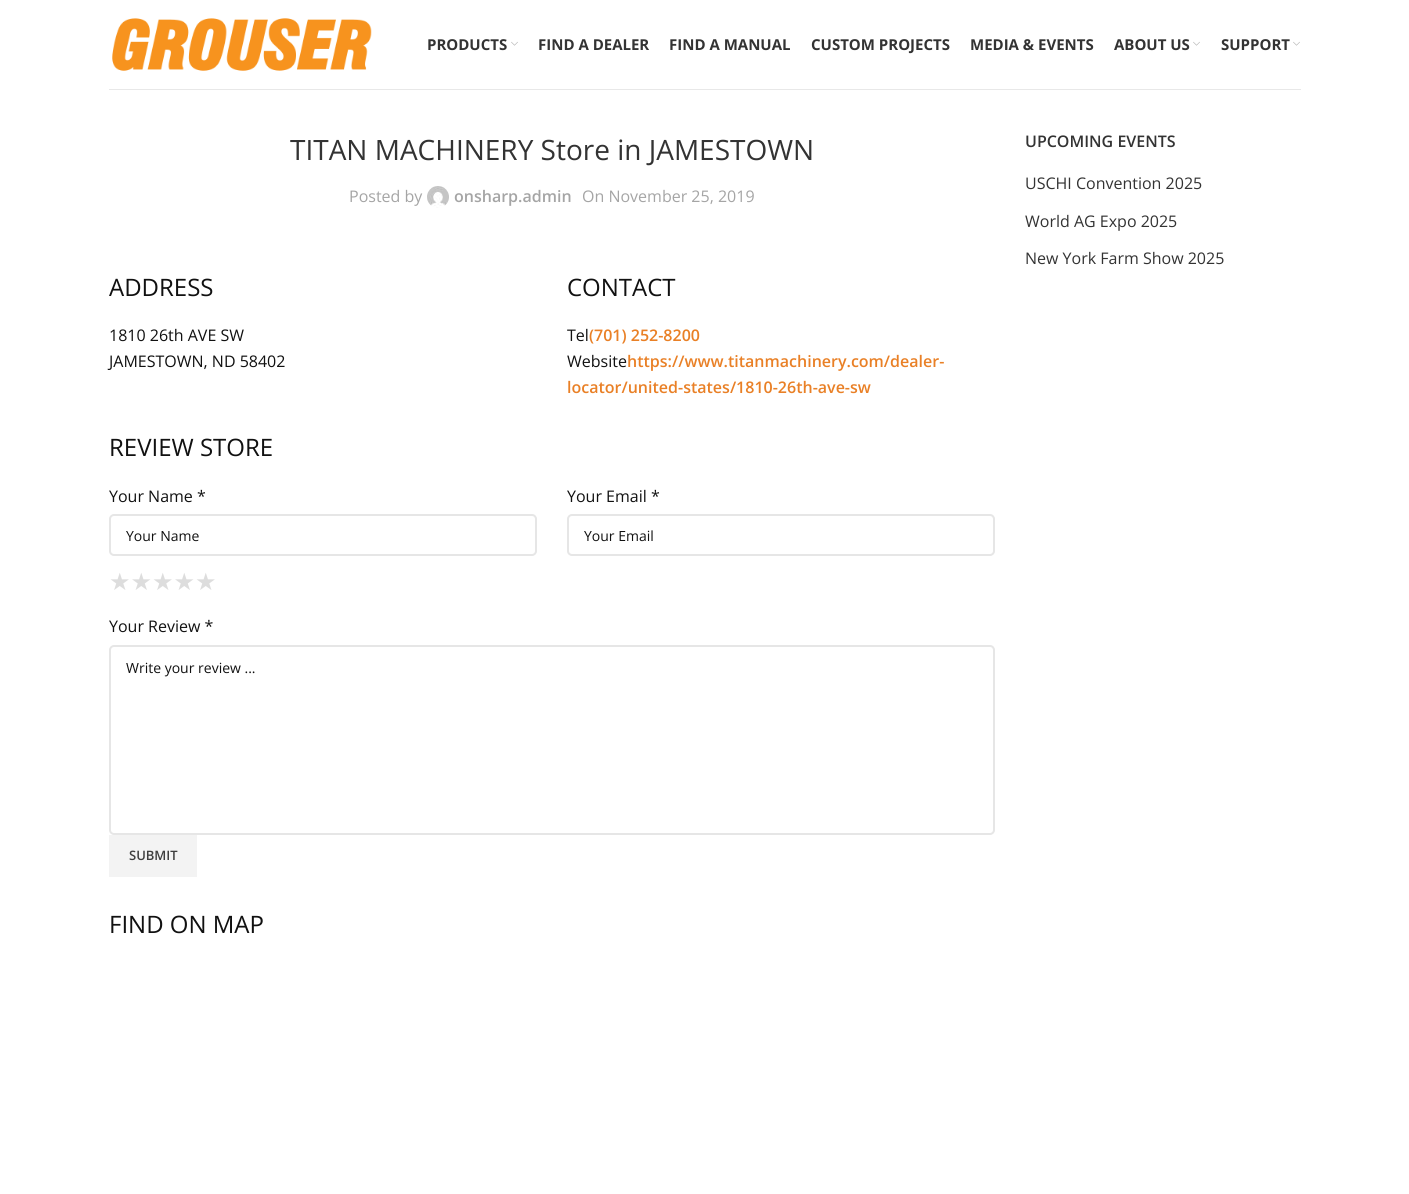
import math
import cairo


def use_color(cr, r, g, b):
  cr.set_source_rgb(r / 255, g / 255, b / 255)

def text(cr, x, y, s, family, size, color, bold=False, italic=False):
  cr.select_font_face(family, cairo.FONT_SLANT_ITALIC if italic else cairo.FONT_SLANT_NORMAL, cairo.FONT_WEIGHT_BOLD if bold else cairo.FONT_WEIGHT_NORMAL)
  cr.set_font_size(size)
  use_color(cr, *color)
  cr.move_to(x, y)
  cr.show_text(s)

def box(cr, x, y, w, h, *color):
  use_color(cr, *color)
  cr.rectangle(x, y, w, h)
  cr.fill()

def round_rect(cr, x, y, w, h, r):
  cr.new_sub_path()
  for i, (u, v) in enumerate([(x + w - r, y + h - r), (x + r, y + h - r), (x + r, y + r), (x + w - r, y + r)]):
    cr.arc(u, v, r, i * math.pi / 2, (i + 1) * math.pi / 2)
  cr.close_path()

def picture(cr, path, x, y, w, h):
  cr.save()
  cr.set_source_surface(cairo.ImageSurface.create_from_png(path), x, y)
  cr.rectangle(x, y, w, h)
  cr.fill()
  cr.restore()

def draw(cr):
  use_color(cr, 255, 255, 255)
  cr.paint()
  box(cr, 109, 89, 1192, 1, 232, 232, 232)
  picture(cr, "img_01.png", 112, 18, 260, 53)
  picture(cr, "img_02.png", 511, 41, 7, 5)
  picture(cr, "img_02.png", 1193, 41, 7, 5)
  picture(cr, "img_02.png", 1293, 41, 7, 5)
  picture(cr, "img_03.png", 427, 186, 22, 22)
  round_rect(cr, 110, 515, 426, 40, 4)
  use_color(cr, 230, 230, 230)
  cr.stroke()
  round_rect(cr, 568, 515, 426, 40, 4)
  cr.stroke()
  round_rect(cr, 110, 646, 884, 188, 4)
  cr.stroke()
  box(cr, 109, 835, 88, 42, 243, 243, 243)
  text(cr, 427, 50, "PRODUCTS", "Open Sans", 15, (51, 51, 51), bold=True)
  text(cr, 538, 50, "FIND A DEALER", "Open Sans", 15, (51, 51, 51), bold=True)
  text(cr, 669, 50, "FIND A MANUAL", "Open Sans", 15, (51, 51, 51), bold=True)
  text(cr, 811, 50, "CUSTOM PROJECTS", "Open Sans", 15, (51, 51, 51), bold=True)
  text(cr, 970, 50, "MEDIA & EVENTS", "Open Sans", 15, (51, 51, 51), bold=True)
  text(cr, 1114, 50, "ABOUT US", "Open Sans", 15, (51, 51, 51), bold=True)
  text(cr, 1221, 50, "SUPPORT", "Open Sans", 15, (51, 51, 51), bold=True)
  text(cr, 290, 160, "TITAN MACHINERY Store in JAMESTOWN", "Open Sans", 28, (51, 51, 51))
  text(cr, 349, 202, "Posted by", "Open Sans", 16, (165, 165, 165))
  text(cr, 454, 202, "onsharp.admin", "Open Sans SemiBold", 16, (165, 165, 165))
  text(cr, 582, 202, "On November 25, 2019", "Open Sans", 16, (165, 165, 165))
  text(cr, 109, 296, "ADDRESS", "Open Sans", 24, (17, 17, 17))
  text(cr, 109, 341, "1810 26th AVE SW", "Open Sans", 16, (17, 17, 17))
  text(cr, 109, 367, "JAMESTOWN, ND 58402", "Open Sans", 16, (17, 17, 17))
  text(cr, 567, 296, "CONTACT", "Open Sans", 24, (17, 17, 17))
  text(cr, 567, 341, "Tel", "Open Sans", 16, (17, 17, 17))
  text(cr, 589, 341, "(701) 252-8200", "Open Sans SemiBold", 16, (233, 128, 38))
  text(cr, 567, 367, "Website", "Open Sans", 16, (17, 17, 17))
  text(cr, 627, 367, "https://www.titanmachinery.com/dealer-", "Open Sans SemiBold", 16, (233, 128, 38))
  text(cr, 567, 393, "locator/united-states/1810-26th-ave-sw", "Open Sans SemiBold", 16, (233, 128, 38))
  text(cr, 109, 456, "REVIEW STORE", "Open Sans", 24, (17, 17, 17))
  text(cr, 109, 502, "Your Name *", "Open Sans", 16, (17, 17, 17))
  text(cr, 126, 541, "Your Name", "Open Sans", 14, (17, 17, 17))
  text(cr, 567, 502, "Your Email *", "Open Sans", 16, (17, 17, 17))
  text(cr, 584, 541, "Your Email", "Open Sans", 14, (17, 17, 17))
  text(cr, 109, 590, "★★★★★", "DejaVu Sans", 24, (221, 221, 221))
  text(cr, 109, 632, "Your Review *", "Open Sans", 16, (17, 17, 17))
  text(cr, 126, 673, "Write your review ...", "Open Sans", 14, (17, 17, 17))
  text(cr, 129, 860, "SUBMIT", "Open Sans SemiBold", 13, (62, 62, 62))
  text(cr, 109, 933, "FIND ON MAP", "Open Sans", 24, (17, 17, 17))
  text(cr, 1025, 147, "UPCOMING EVENTS", "Open Sans SemiBold", 16, (51, 51, 51))
  text(cr, 1025, 189, "USCHI Convention 2025", "Open Sans", 16, (51, 51, 51))
  text(cr, 1025, 227, "World AG Expo 2025", "Open Sans", 16, (51, 51, 51))
  text(cr, 1025, 264, "New York Farm Show 2025", "Open Sans", 16, (51, 51, 51))


surface = cairo.ImageSurface(cairo.FORMAT_RGB24, 1409, 1194)
cr = cairo.Context(surface)
options = cairo.FontOptions()
options.set_hint_metrics(cairo.HINT_METRICS_OFF)
options.set_hint_style(cairo.HINT_STYLE_NONE)
cr.set_font_options(options)
cr.set_miter_limit(4)
draw(cr)
surface.write_to_png("out.png")
